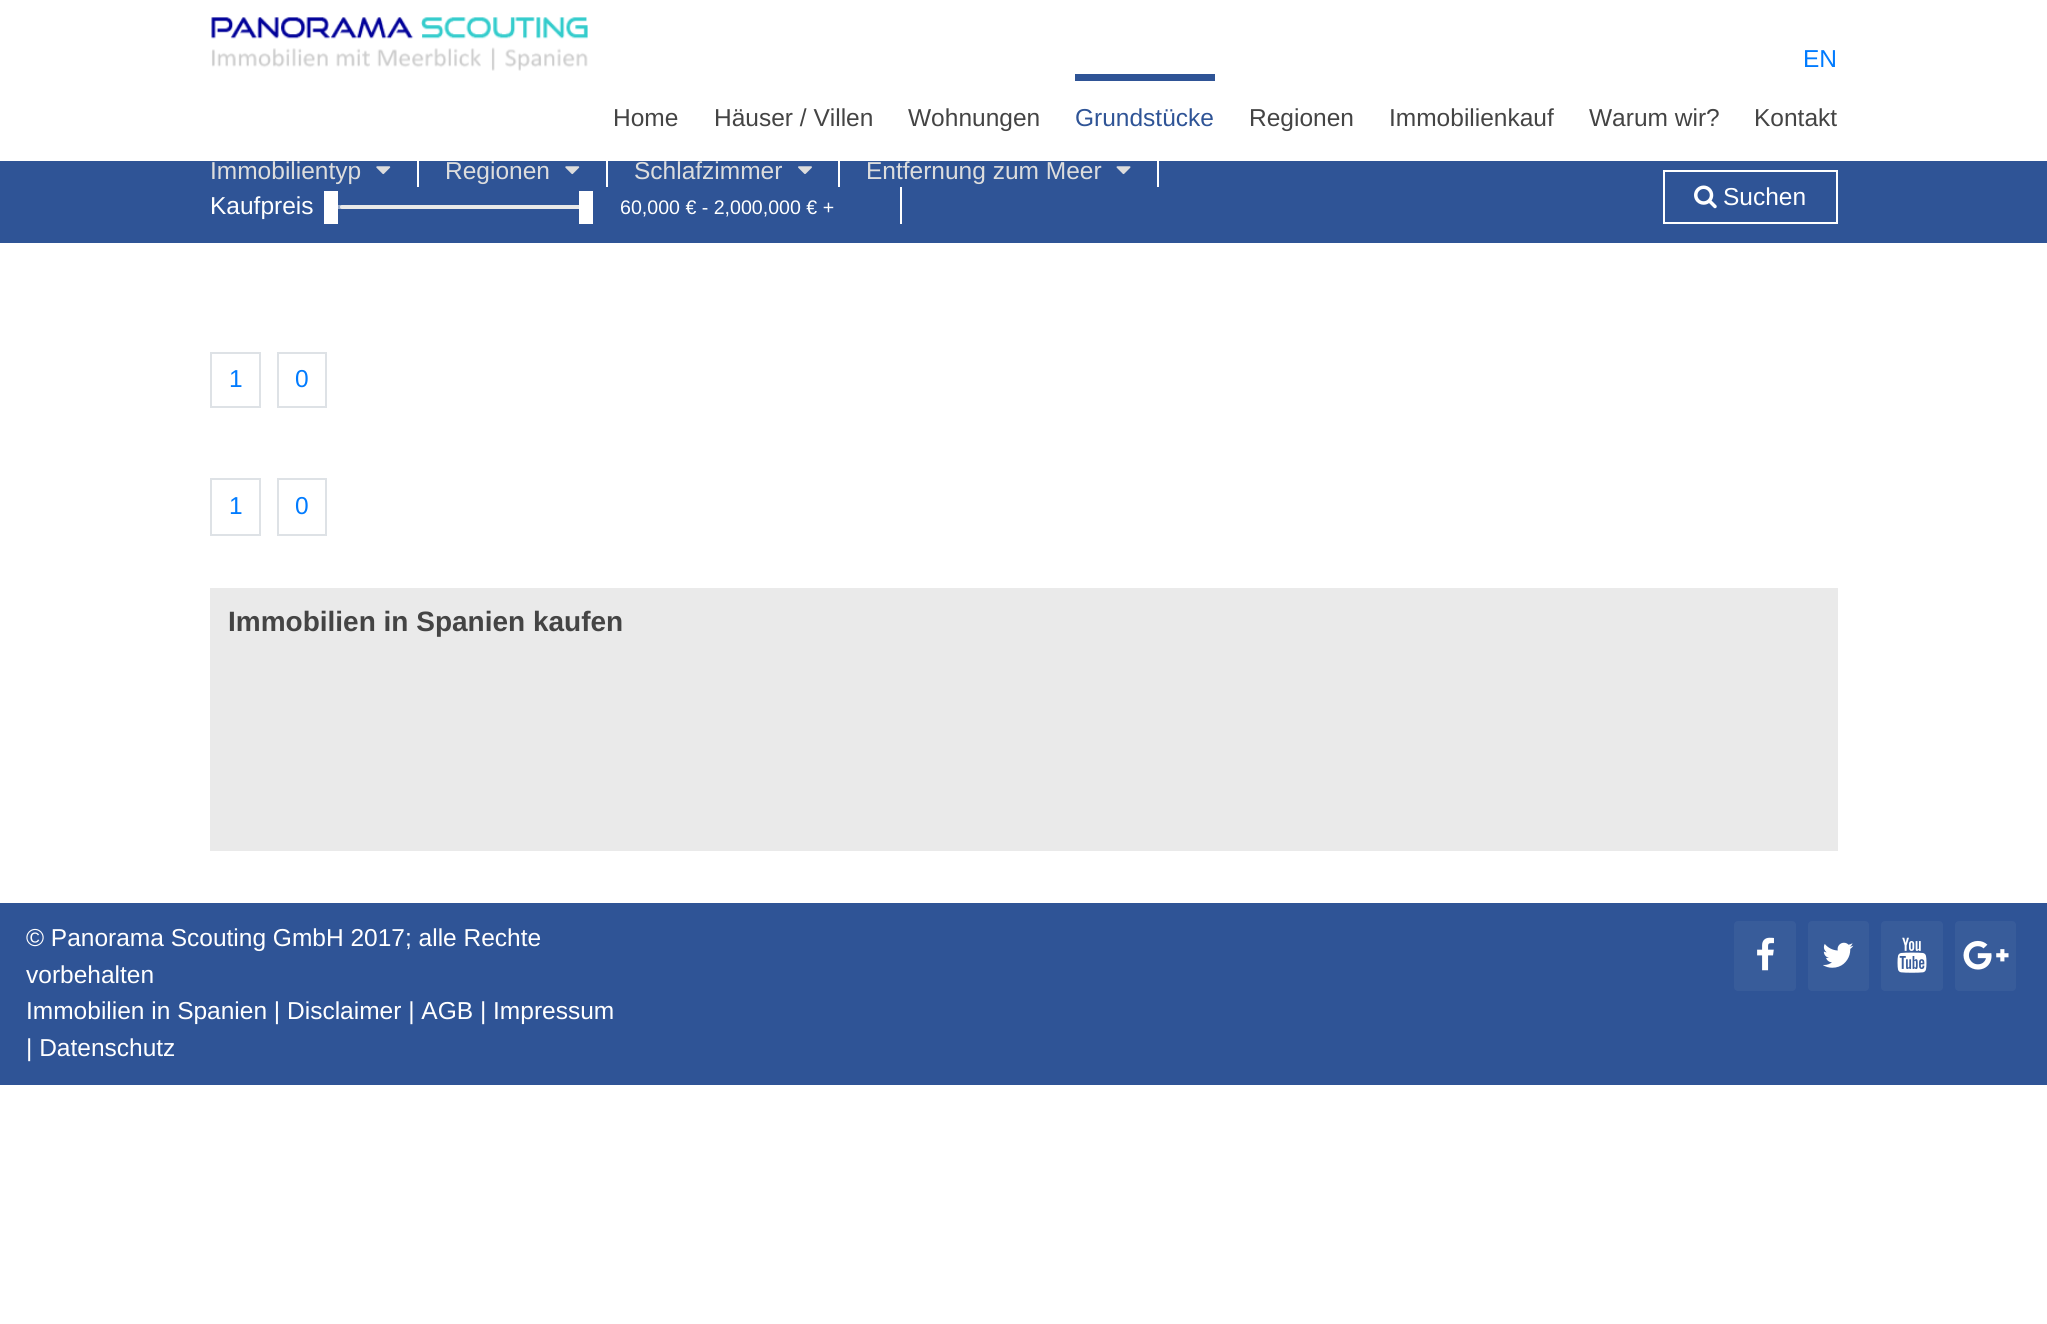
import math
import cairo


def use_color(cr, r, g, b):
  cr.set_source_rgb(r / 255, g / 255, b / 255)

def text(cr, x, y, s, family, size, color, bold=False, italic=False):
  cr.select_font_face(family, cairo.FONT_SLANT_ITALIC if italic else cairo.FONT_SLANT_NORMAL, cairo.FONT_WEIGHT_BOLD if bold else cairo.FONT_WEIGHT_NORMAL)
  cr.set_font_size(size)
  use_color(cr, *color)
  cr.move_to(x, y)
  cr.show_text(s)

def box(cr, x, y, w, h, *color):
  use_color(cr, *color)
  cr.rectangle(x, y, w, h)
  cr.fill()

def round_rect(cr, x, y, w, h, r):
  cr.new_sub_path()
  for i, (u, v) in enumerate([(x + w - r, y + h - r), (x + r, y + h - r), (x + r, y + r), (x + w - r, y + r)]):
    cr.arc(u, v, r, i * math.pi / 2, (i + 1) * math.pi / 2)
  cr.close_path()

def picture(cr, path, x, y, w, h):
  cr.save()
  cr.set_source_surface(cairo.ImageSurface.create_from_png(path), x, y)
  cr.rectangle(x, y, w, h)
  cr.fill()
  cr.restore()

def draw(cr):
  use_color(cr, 255, 255, 255)
  cr.paint()
  picture(cr, "img_01.png", 211, 17, 377, 54)
  box(cr, 1075, 74, 140, 7, 47, 84, 150)
  box(cr, 0, 161, 2047, 82, 47, 84, 150)
  box(cr, 417, 161, 2, 26, 255, 255, 255)
  picture(cr, "img_02.png", 376, 166, 15, 9)
  box(cr, 606, 161, 2, 26, 255, 255, 255)
  picture(cr, "img_02.png", 565, 166, 15, 9)
  box(cr, 838, 161, 2, 26, 255, 255, 255)
  picture(cr, "img_03.png", 798, 166, 14, 8)
  box(cr, 1157, 161, 2, 26, 255, 255, 255)
  picture(cr, "img_04.png", 1116, 166, 15, 9)
  box(cr, 900, 187, 2, 37, 255, 255, 255)
  box(cr, 331, 205, 11, 4, 151, 170, 203)
  box(cr, 324, 191, 14, 33, 255, 255, 255)
  use_color(cr, 233, 233, 233)
  round_rect(cr, 340, 205, 253, 4, 2)
  cr.fill()
  box(cr, 579, 191, 14, 33, 255, 255, 255)
  cr.rectangle(1664, 171, 173, 52)
  cr.stroke()
  picture(cr, "img_05.png", 1694, 185, 23, 24)
  cr.rectangle(211, 353, 49, 54)
  use_color(cr, 222, 226, 230)
  cr.stroke()
  cr.rectangle(278, 353, 48, 54)
  cr.stroke()
  cr.rectangle(211, 479, 49, 56)
  cr.stroke()
  cr.rectangle(278, 479, 48, 56)
  cr.stroke()
  box(cr, 210, 588, 1628, 263, 234, 234, 234)
  box(cr, 0, 903, 2047, 182, 47, 84, 150)
  use_color(cr, 56, 92, 154)
  round_rect(cr, 1734, 921, 62, 70, 4)
  cr.fill()
  picture(cr, "img_06.png", 1757, 937, 17, 34)
  round_rect(cr, 1808, 921, 61, 70, 4)
  cr.fill()
  picture(cr, "img_07.png", 1823, 942, 31, 26)
  round_rect(cr, 1881, 921, 62, 70, 4)
  cr.fill()
  picture(cr, "img_08.png", 1897, 937, 30, 36)
  round_rect(cr, 1955, 921, 61, 70, 4)
  cr.fill()
  picture(cr, "img_09.png", 1963, 940, 46, 30)
  text(cr, 1803, 67, "EN", "Liberation Sans", 24.5, (0, 123, 255))
  text(cr, 613, 126, "Home", "Liberation Sans", 24.5, (68, 68, 68))
  text(cr, 714, 126, "Häuser / Villen", "Liberation Sans", 24.5, (68, 68, 68))
  text(cr, 908, 126, "Wohnungen", "Liberation Sans", 24.5, (68, 68, 68))
  text(cr, 1075, 126, "Grundstücke", "Liberation Sans", 24.5, (47, 84, 150))
  text(cr, 1249, 126, "Regionen", "Liberation Sans", 24.5, (68, 68, 68))
  text(cr, 1389, 126, "Immobilienkauf", "Liberation Sans", 24.5, (68, 68, 68))
  text(cr, 1589, 126, "Warum wir?", "Liberation Sans", 24.5, (68, 68, 68))
  text(cr, 1754, 126, "Kontakt", "Liberation Sans", 24.5, (68, 68, 68))
  text(cr, 210, 179, "Immobilientyp", "Liberation Sans", 24.5, (221, 221, 221))
  text(cr, 445, 179, "Regionen", "Liberation Sans", 24.5, (221, 221, 221))
  text(cr, 634, 179, "Schlafzimmer", "Liberation Sans", 24.5, (221, 221, 221))
  text(cr, 866, 179, "Entfernung zum Meer", "Liberation Sans", 24.5, (221, 221, 221))
  text(cr, 210, 214, "Kaufpreis", "Liberation Sans", 24.5, (255, 255, 255))
  text(cr, 620, 214, "60,000 € - 2,000,000 € +", "Liberation Sans", 19.6, (255, 255, 255))
  text(cr, 1723, 205, "Suchen", "Liberation Sans", 24.5, (255, 255, 255))
  text(cr, 229, 387, "1", "Liberation Sans", 24.5, (0, 123, 255))
  text(cr, 295, 387, "0", "Liberation Sans", 24.5, (0, 123, 255))
  text(cr, 229, 514, "1", "Liberation Sans", 24.5, (0, 123, 255))
  text(cr, 295, 514, "0", "Liberation Sans", 24.5, (0, 123, 255))
  text(cr, 228, 631, "Immobilien in Spanien kaufen", "Liberation Sans", 28, (68, 68, 68), bold=True)
  text(cr, 26, 946, "© Panorama Scouting GmbH 2017; alle Rechte", "Liberation Sans", 24.5, (255, 255, 255))
  text(cr, 26, 983, "vorbehalten", "Liberation Sans", 24.5, (255, 255, 255))
  text(cr, 26, 1019, "Immobilien in Spanien | Disclaimer | AGB | Impressum", "Liberation Sans", 24.5, (255, 255, 255))
  text(cr, 26, 1056, "| Datenschutz", "Liberation Sans", 24.5, (255, 255, 255))


surface = cairo.ImageSurface(cairo.FORMAT_RGB24, 2047, 1324)
cr = cairo.Context(surface)
options = cairo.FontOptions()
options.set_hint_metrics(cairo.HINT_METRICS_OFF)
options.set_hint_style(cairo.HINT_STYLE_NONE)
cr.set_font_options(options)
cr.set_miter_limit(4)
draw(cr)
surface.write_to_png("out.png")
